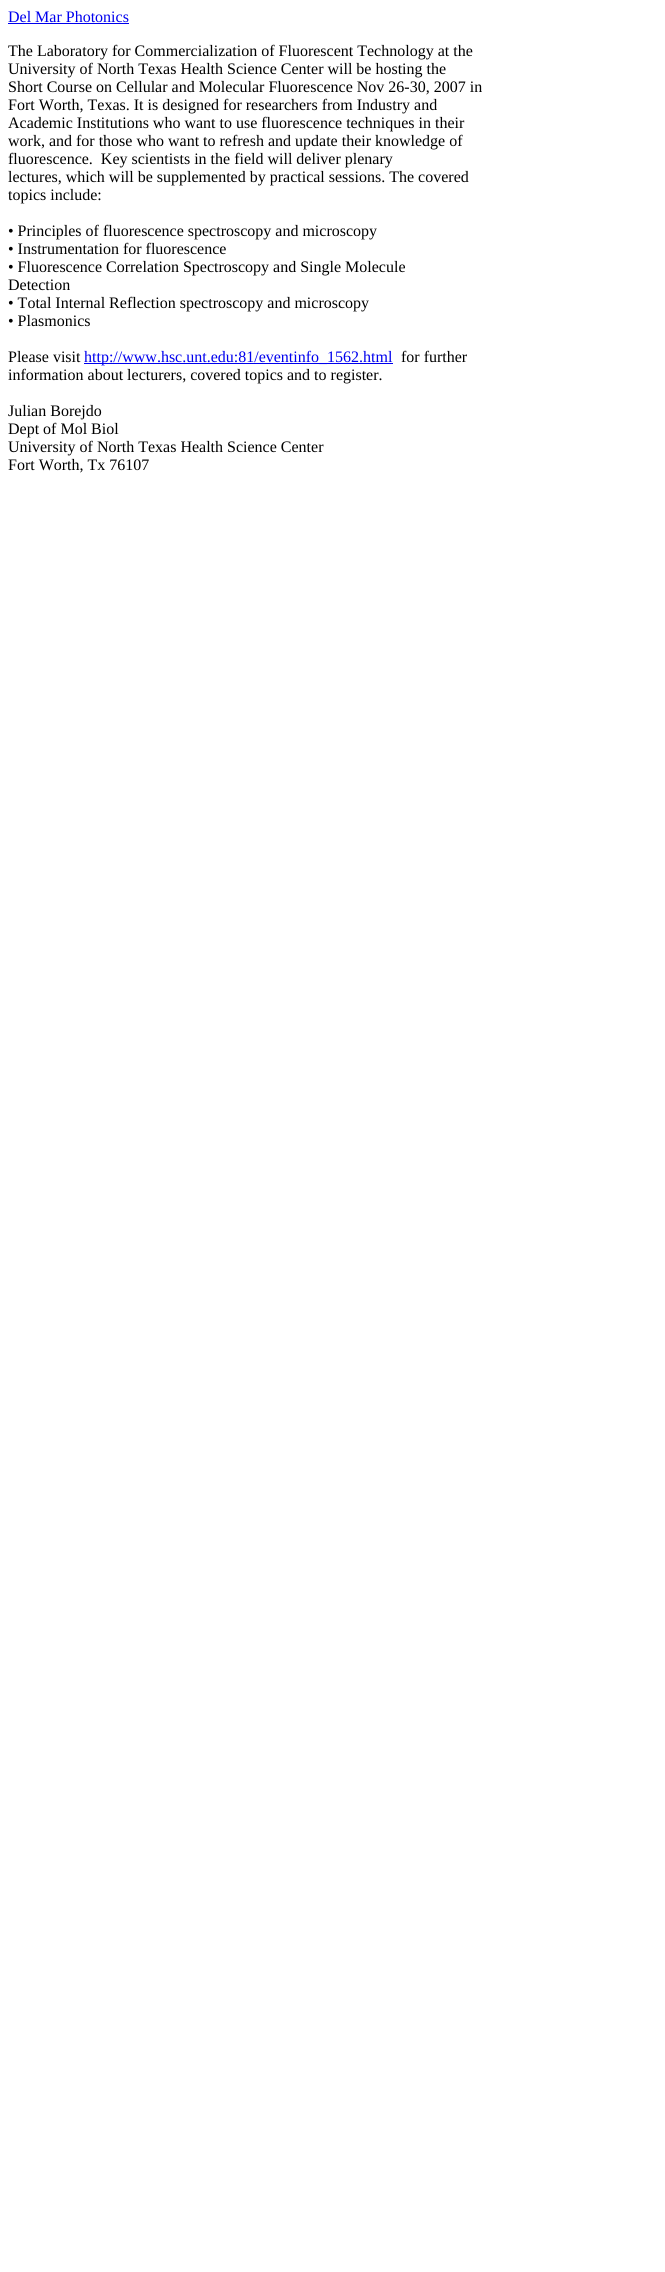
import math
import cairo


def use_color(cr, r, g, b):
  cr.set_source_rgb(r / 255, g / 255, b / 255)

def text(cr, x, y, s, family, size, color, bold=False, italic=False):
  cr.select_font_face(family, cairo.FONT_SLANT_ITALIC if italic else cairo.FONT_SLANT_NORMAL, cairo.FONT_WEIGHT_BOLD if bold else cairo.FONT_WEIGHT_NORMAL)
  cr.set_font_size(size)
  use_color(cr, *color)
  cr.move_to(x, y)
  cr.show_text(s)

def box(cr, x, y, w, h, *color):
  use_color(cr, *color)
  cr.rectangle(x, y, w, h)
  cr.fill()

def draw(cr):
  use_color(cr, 255, 255, 255)
  cr.paint()
  box(cr, 8, 23, 121, 1, 0, 0, 238)
  box(cr, 84, 363, 309, 1, 0, 0, 238)
  text(cr, 8, 22, "Del Mar Photonics", "Liberation Serif", 16, (0, 0, 238))
  text(cr, 8, 56, "The Laboratory for Commercialization of Fluorescent Technology at the", "Liberation Serif", 16, (0, 0, 0))
  text(cr, 8, 74, "University of North Texas Health Science Center will be hosting the", "Liberation Serif", 16, (0, 0, 0))
  text(cr, 8, 92, "Short Course on Cellular and Molecular Fluorescence Nov 26-30, 2007 in", "Liberation Serif", 16, (0, 0, 0))
  text(cr, 8, 110, "Fort Worth, Texas. It is designed for researchers from Industry and", "Liberation Serif", 16, (0, 0, 0))
  text(cr, 8, 128, "Academic Institutions who want to use fluorescence techniques in their", "Liberation Serif", 16, (0, 0, 0))
  text(cr, 8, 146, "work, and for those who want to refresh and update their knowledge of", "Liberation Serif", 16, (0, 0, 0))
  text(cr, 8, 164, "fluorescence.  Key scientists in the field will deliver plenary", "Liberation Serif", 16, (0, 0, 0))
  text(cr, 8, 182, "lectures, which will be supplemented by practical sessions. The covered", "Liberation Serif", 16, (0, 0, 0))
  text(cr, 8, 200, "topics include:", "Liberation Serif", 16, (0, 0, 0))
  text(cr, 8, 236, "• Principles of fluorescence spectroscopy and microscopy", "Liberation Serif", 16, (0, 0, 0))
  text(cr, 8, 254, "• Instrumentation for fluorescence", "Liberation Serif", 16, (0, 0, 0))
  text(cr, 8, 272, "• Fluorescence Correlation Spectroscopy and Single Molecule", "Liberation Serif", 16, (0, 0, 0))
  text(cr, 8, 290, "Detection", "Liberation Serif", 16, (0, 0, 0))
  text(cr, 8, 308, "• Total Internal Reflection spectroscopy and microscopy", "Liberation Serif", 16, (0, 0, 0))
  text(cr, 8, 326, "• Plasmonics", "Liberation Serif", 16, (0, 0, 0))
  text(cr, 8, 362, "Please visit", "Liberation Serif", 16, (0, 0, 0))
  text(cr, 84, 362, "http://www.hsc.unt.edu:81/eventinfo_1562.html", "Liberation Serif", 16, (0, 0, 238))
  text(cr, 401, 362, "for further", "Liberation Serif", 16, (0, 0, 0))
  text(cr, 8, 380, "information about lecturers, covered topics and to register.", "Liberation Serif", 16, (0, 0, 0))
  text(cr, 8, 416, "Julian Borejdo", "Liberation Serif", 16, (0, 0, 0))
  text(cr, 8, 434, "Dept of Mol Biol", "Liberation Serif", 16, (0, 0, 0))
  text(cr, 8, 452, "University of North Texas Health Science Center", "Liberation Serif", 16, (0, 0, 0))
  text(cr, 8, 470, "Fort Worth, Tx 76107", "Liberation Serif", 16, (0, 0, 0))


surface = cairo.ImageSurface(cairo.FORMAT_RGB24, 665, 2272)
cr = cairo.Context(surface)
options = cairo.FontOptions()
options.set_hint_metrics(cairo.HINT_METRICS_OFF)
options.set_hint_style(cairo.HINT_STYLE_NONE)
cr.set_font_options(options)
cr.set_miter_limit(4)
draw(cr)
surface.write_to_png("out.png")
